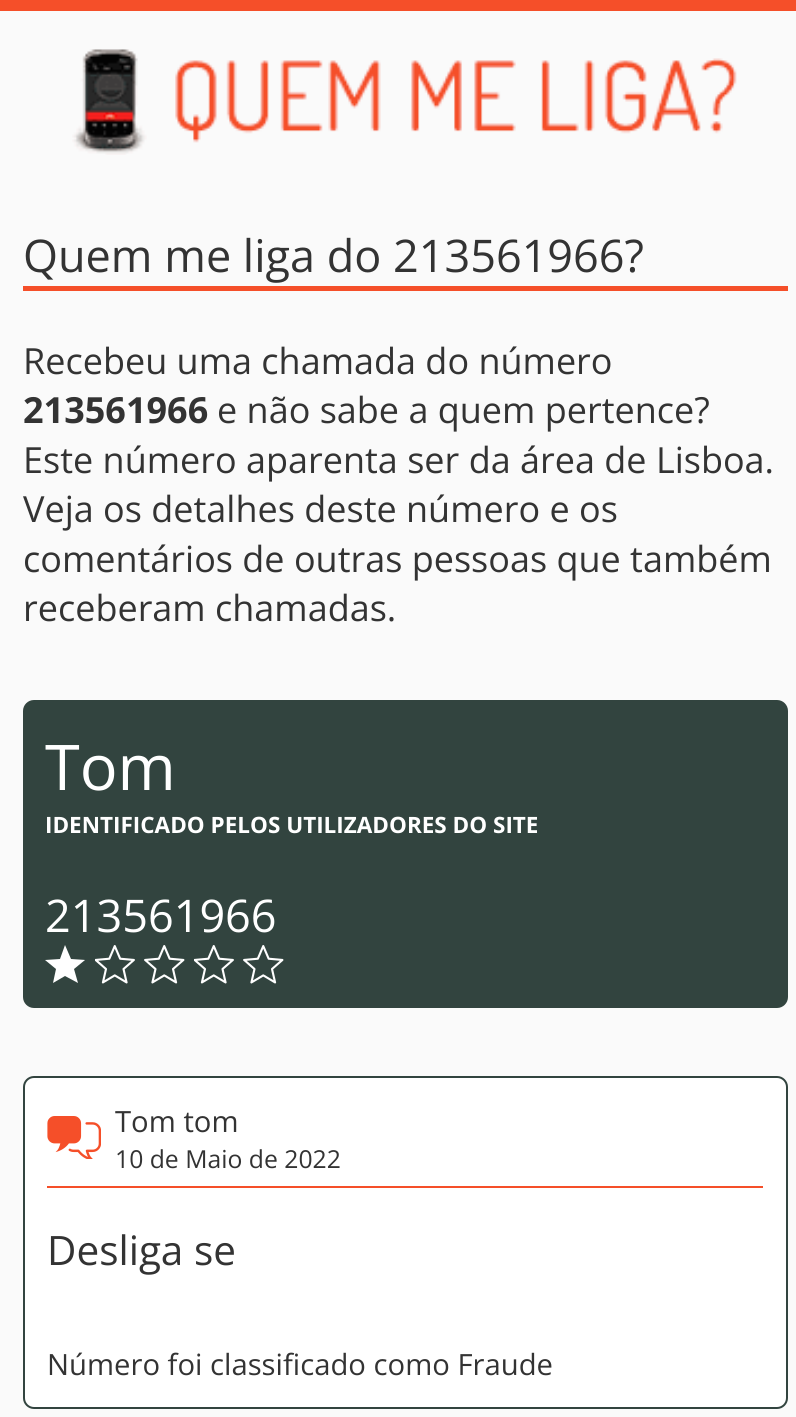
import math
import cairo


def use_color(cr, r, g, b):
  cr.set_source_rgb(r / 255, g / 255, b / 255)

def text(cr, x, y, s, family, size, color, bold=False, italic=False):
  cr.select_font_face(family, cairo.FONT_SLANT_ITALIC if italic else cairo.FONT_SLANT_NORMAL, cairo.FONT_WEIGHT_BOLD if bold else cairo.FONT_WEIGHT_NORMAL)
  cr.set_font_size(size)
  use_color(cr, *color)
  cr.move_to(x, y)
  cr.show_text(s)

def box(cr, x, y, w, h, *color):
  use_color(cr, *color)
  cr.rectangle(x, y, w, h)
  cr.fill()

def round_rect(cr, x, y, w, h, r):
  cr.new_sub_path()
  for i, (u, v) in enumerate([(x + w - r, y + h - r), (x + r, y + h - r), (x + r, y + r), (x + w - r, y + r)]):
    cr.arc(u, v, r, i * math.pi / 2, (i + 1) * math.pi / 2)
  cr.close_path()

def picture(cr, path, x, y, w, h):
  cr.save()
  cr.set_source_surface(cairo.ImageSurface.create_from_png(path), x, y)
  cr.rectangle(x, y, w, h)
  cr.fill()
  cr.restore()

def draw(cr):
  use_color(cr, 250, 250, 250)
  cr.paint()
  box(cr, 0, 0, 796, 11, 245, 79, 41)
  picture(cr, "img_01.png", 72, 49, 665, 106)
  box(cr, 23, 286, 765, 5, 245, 79, 41)
  use_color(cr, 50, 68, 63)
  round_rect(cr, 23, 700, 765, 308, 11)
  cr.fill()
  use_color(cr, 255, 255, 255)
  cr.set_fill_rule(cairo.FILL_RULE_EVEN_ODD)
  cr.new_path()
  cr.move_to(65, 945)
  cr.line_to(71, 959)
  cr.line_to(85, 960)
  cr.line_to(74, 969)
  cr.line_to(78, 983)
  cr.line_to(65, 976)
  cr.line_to(53, 983)
  cr.line_to(56, 969)
  cr.line_to(45, 960)
  cr.line_to(60, 959)
  cr.close_path()
  cr.fill()
  picture(cr, "img_02.png", 95, 945, 40, 39)
  picture(cr, "img_03.png", 144, 945, 41, 39)
  picture(cr, "img_02.png", 194, 945, 40, 39)
  picture(cr, "img_03.png", 243, 945, 41, 39)
  round_rect(cr, 24, 1077, 763, 331, 10)
  cr.fill_preserve()
  use_color(cr, 50, 68, 63)
  cr.stroke()
  picture(cr, "img_04.png", 47, 1116, 54, 43)
  box(cr, 47, 1186, 716, 2, 245, 79, 41)
  text(cr, 23, 272, "Quem me liga do 213561966?", "Open Sans", 45, (51, 51, 51))
  text(cr, 23, 374, "Recebeu uma chamada do número", "Open Sans", 36, (51, 51, 51))
  text(cr, 23, 423, "213561966", "Open Sans", 36, (51, 51, 51), bold=True)
  text(cr, 217, 423, "e não sabe a quem pertence?", "Open Sans", 36, (51, 51, 51))
  text(cr, 23, 473, "Este número aparenta ser da área de Lisboa.", "Open Sans", 36, (51, 51, 51))
  text(cr, 23, 522, "Veja os detalhes deste número e os", "Open Sans", 36, (51, 51, 51))
  text(cr, 23, 572, "comentários de outras pessoas que também", "Open Sans", 36, (51, 51, 51))
  text(cr, 23, 621, "receberam chamadas.", "Open Sans", 36, (51, 51, 51))
  text(cr, 45, 790, "Tom", "Open Sans", 63, (255, 255, 255))
  text(cr, 45, 833, "IDENTIFICADO PELOS UTILIZADORES DO SITE", "Open Sans", 22.5, (255, 255, 255), bold=True)
  text(cr, 45, 932, "213561966", "Open Sans", 45, (255, 255, 255))
  text(cr, 115, 1132, "Tom tom", "Open Sans", 29.25, (51, 51, 51))
  text(cr, 115, 1168, "10 de Maio de 2022", "Open Sans", 24.75, (51, 51, 51))
  text(cr, 47, 1265, "Desliga se", "Open Sans", 40.5, (51, 51, 51))
  text(cr, 47, 1375, "Número foi classificado como Fraude", "Open Sans", 29.25, (51, 51, 51))


surface = cairo.ImageSurface(cairo.FORMAT_RGB24, 796, 1417)
cr = cairo.Context(surface)
options = cairo.FontOptions()
options.set_hint_metrics(cairo.HINT_METRICS_OFF)
options.set_hint_style(cairo.HINT_STYLE_NONE)
cr.set_font_options(options)
cr.set_miter_limit(4)
draw(cr)
surface.write_to_png("out.png")
